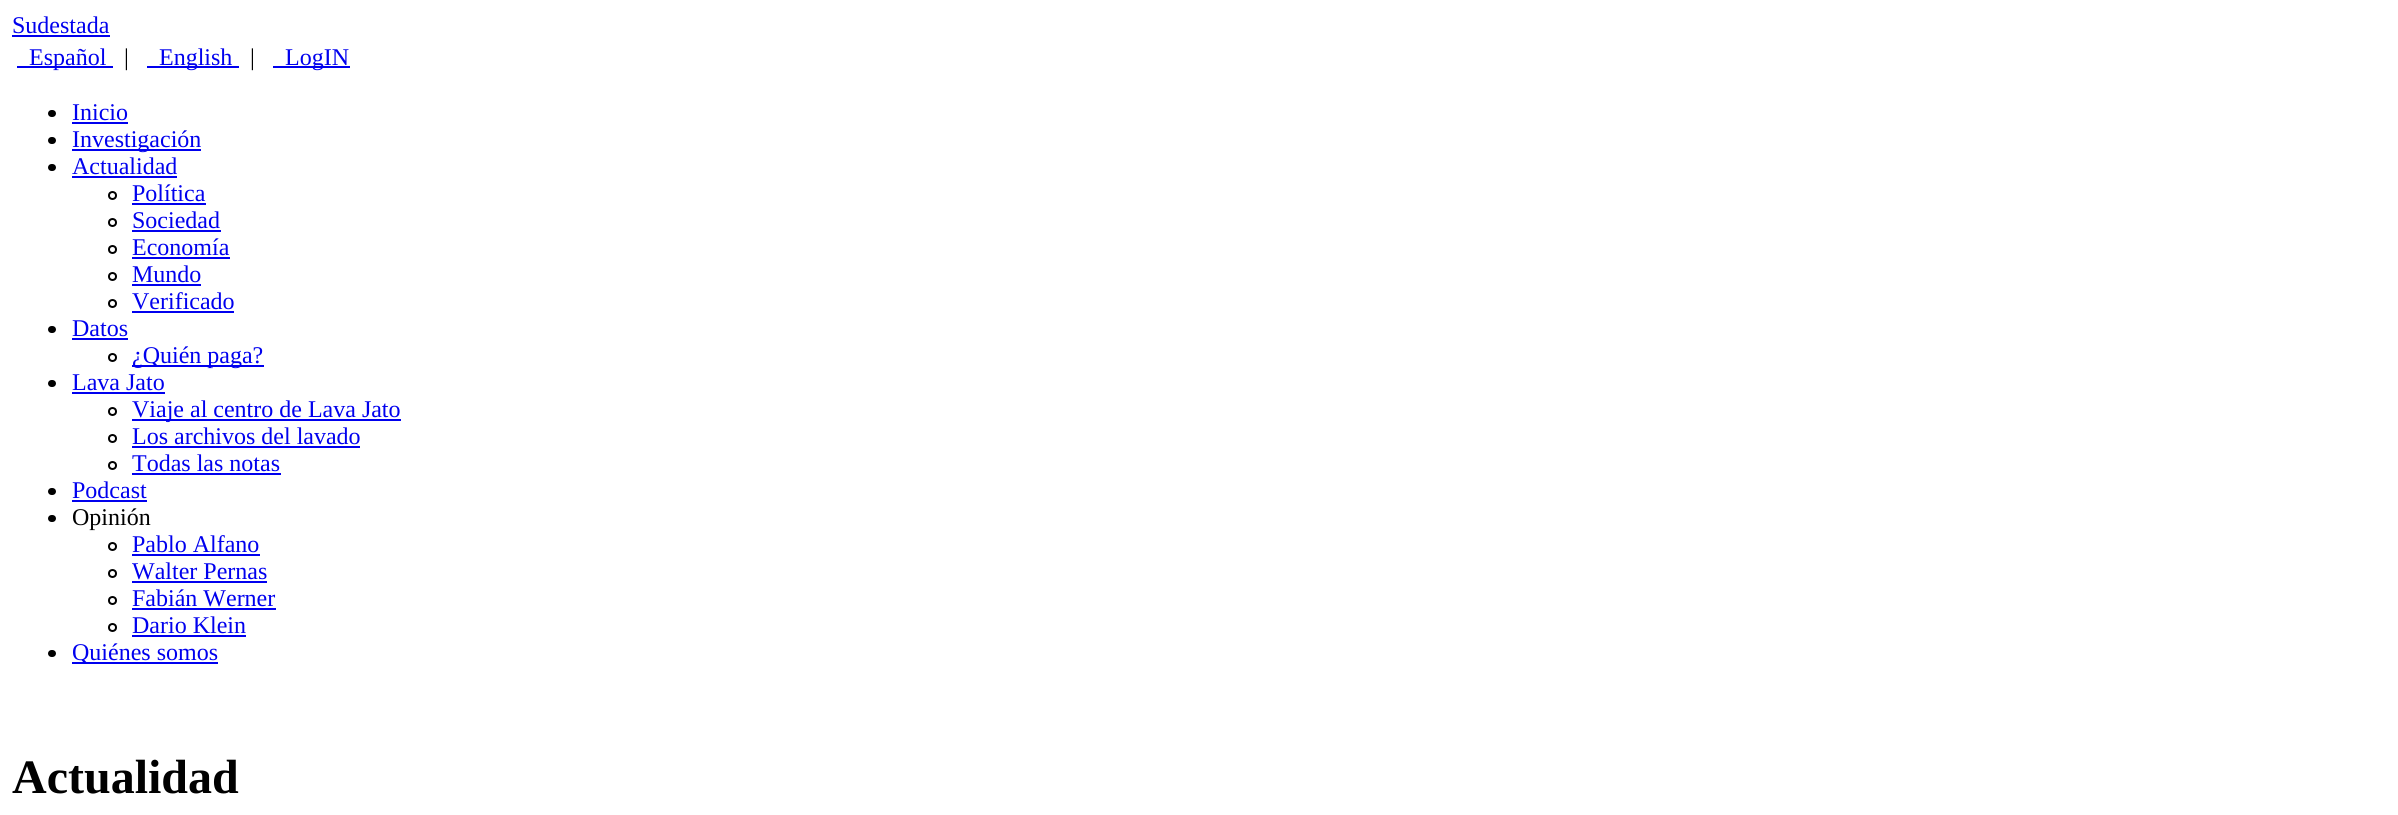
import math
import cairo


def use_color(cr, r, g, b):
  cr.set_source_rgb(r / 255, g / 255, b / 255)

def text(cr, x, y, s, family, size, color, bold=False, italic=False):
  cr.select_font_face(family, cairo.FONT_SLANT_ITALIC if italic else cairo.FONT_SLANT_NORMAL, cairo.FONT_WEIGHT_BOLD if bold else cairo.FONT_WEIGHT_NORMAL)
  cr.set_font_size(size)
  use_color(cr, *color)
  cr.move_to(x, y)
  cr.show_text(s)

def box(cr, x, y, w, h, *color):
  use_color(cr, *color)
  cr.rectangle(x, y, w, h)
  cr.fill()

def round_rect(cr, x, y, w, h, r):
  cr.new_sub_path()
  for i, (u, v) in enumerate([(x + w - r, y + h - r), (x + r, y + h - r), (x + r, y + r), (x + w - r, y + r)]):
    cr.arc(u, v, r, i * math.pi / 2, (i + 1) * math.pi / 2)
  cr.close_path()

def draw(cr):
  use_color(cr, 255, 255, 255)
  cr.paint()
  box(cr, 12, 35, 98, 2, 0, 0, 238)
  box(cr, 17, 66, 96, 2, 0, 0, 238)
  box(cr, 147, 66, 92, 2, 0, 0, 238)
  box(cr, 273, 66, 77, 2, 0, 0, 238)
  use_color(cr, 0, 0, 0)
  round_rect(cr, 48, 110, 8, 7, 3.5)
  cr.fill()
  box(cr, 72, 122, 56, 2, 0, 0, 238)
  use_color(cr, 0, 0, 0)
  round_rect(cr, 48, 137, 8, 7, 3.5)
  cr.fill()
  box(cr, 72, 149, 129, 2, 0, 0, 238)
  use_color(cr, 0, 0, 0)
  round_rect(cr, 48, 164, 8, 7, 3.5)
  cr.fill()
  box(cr, 72, 176, 105, 2, 0, 0, 238)
  cr.arc(112.5, 195.5, 3.5, 0, 2 * math.pi)
  use_color(cr, 0, 0, 0)
  cr.stroke()
  box(cr, 132, 203, 74, 2, 0, 0, 238)
  cr.arc(112.5, 222.5, 3.5, 0, 2 * math.pi)
  use_color(cr, 0, 0, 0)
  cr.stroke()
  box(cr, 132, 230, 89, 2, 0, 0, 238)
  cr.arc(112.5, 249.5, 3.5, 0, 2 * math.pi)
  use_color(cr, 0, 0, 0)
  cr.stroke()
  box(cr, 132, 257, 98, 2, 0, 0, 238)
  cr.arc(112.5, 276.5, 3.5, 0, 2 * math.pi)
  use_color(cr, 0, 0, 0)
  cr.stroke()
  box(cr, 132, 284, 69, 2, 0, 0, 238)
  cr.arc(112.5, 303.5, 3.5, 0, 2 * math.pi)
  use_color(cr, 0, 0, 0)
  cr.stroke()
  box(cr, 132, 311, 102, 2, 0, 0, 238)
  use_color(cr, 0, 0, 0)
  round_rect(cr, 48, 326, 8, 7, 3.5)
  cr.fill()
  box(cr, 72, 338, 56, 2, 0, 0, 238)
  cr.arc(112.5, 357.5, 3.5, 0, 2 * math.pi)
  use_color(cr, 0, 0, 0)
  cr.stroke()
  box(cr, 132, 365, 132, 2, 0, 0, 238)
  use_color(cr, 0, 0, 0)
  round_rect(cr, 48, 380, 8, 7, 3.5)
  cr.fill()
  box(cr, 72, 392, 93, 2, 0, 0, 238)
  cr.arc(112.5, 411.5, 3.5, 0, 2 * math.pi)
  use_color(cr, 0, 0, 0)
  cr.stroke()
  box(cr, 132, 419, 269, 2, 0, 0, 238)
  cr.arc(112.5, 438.5, 3.5, 0, 2 * math.pi)
  use_color(cr, 0, 0, 0)
  cr.stroke()
  box(cr, 132, 446, 228, 2, 0, 0, 238)
  cr.arc(112.5, 465.5, 3.5, 0, 2 * math.pi)
  use_color(cr, 0, 0, 0)
  cr.stroke()
  box(cr, 132, 473, 149, 2, 0, 0, 238)
  use_color(cr, 0, 0, 0)
  round_rect(cr, 48, 488, 8, 7, 3.5)
  cr.fill()
  box(cr, 72, 500, 75, 2, 0, 0, 238)
  use_color(cr, 0, 0, 0)
  round_rect(cr, 48, 515, 8, 7, 3.5)
  cr.fill()
  cr.arc(112.5, 546.5, 3.5, 0, 2 * math.pi)
  cr.stroke()
  box(cr, 132, 554, 128, 2, 0, 0, 238)
  cr.arc(112.5, 573.5, 3.5, 0, 2 * math.pi)
  use_color(cr, 0, 0, 0)
  cr.stroke()
  box(cr, 132, 581, 135, 2, 0, 0, 238)
  cr.arc(112.5, 600.5, 3.5, 0, 2 * math.pi)
  use_color(cr, 0, 0, 0)
  cr.stroke()
  box(cr, 132, 608, 144, 2, 0, 0, 238)
  cr.arc(112.5, 627.5, 3.5, 0, 2 * math.pi)
  use_color(cr, 0, 0, 0)
  cr.stroke()
  box(cr, 132, 635, 114, 2, 0, 0, 238)
  use_color(cr, 0, 0, 0)
  round_rect(cr, 48, 650, 8, 7, 3.5)
  cr.fill()
  box(cr, 72, 662, 146, 2, 0, 0, 238)
  text(cr, 12, 33, "Sudestada", "Liberation Serif", 24, (0, 0, 238))
  text(cr, 29, 65, "Español", "Liberation Serif", 24, (0, 0, 238))
  text(cr, 124, 65, "|", "Liberation Serif", 24, (0, 0, 0))
  text(cr, 159, 65, "English", "Liberation Serif", 24, (0, 0, 238))
  text(cr, 250, 65, "|", "Liberation Serif", 24, (0, 0, 0))
  text(cr, 285, 65, "LogIN", "Liberation Serif", 24, (0, 0, 238))
  text(cr, 72, 120, "Inicio", "Liberation Serif", 24, (0, 0, 238))
  text(cr, 72, 147, "Investigación", "Liberation Serif", 24, (0, 0, 238))
  text(cr, 72, 174, "Actualidad", "Liberation Serif", 24, (0, 0, 238))
  text(cr, 132, 201, "Política", "Liberation Serif", 24, (0, 0, 238))
  text(cr, 132, 228, "Sociedad", "Liberation Serif", 24, (0, 0, 238))
  text(cr, 132, 255, "Economía", "Liberation Serif", 24, (0, 0, 238))
  text(cr, 132, 282, "Mundo", "Liberation Serif", 24, (0, 0, 238))
  text(cr, 132, 309, "Verificado", "Liberation Serif", 24, (0, 0, 238))
  text(cr, 72, 336, "Datos", "Liberation Serif", 24, (0, 0, 238))
  text(cr, 132, 363, "¿Quién paga?", "Liberation Serif", 24, (0, 0, 238))
  text(cr, 72, 390, "Lava Jato", "Liberation Serif", 24, (0, 0, 238))
  text(cr, 132, 417, "Viaje al centro de Lava Jato", "Liberation Serif", 24, (0, 0, 238))
  text(cr, 132, 444, "Los archivos del lavado", "Liberation Serif", 24, (0, 0, 238))
  text(cr, 132, 471, "Todas las notas", "Liberation Serif", 24, (0, 0, 238))
  text(cr, 72, 498, "Podcast", "Liberation Serif", 24, (0, 0, 238))
  text(cr, 72, 525, "Opinión", "Liberation Serif", 24, (0, 0, 0))
  text(cr, 132, 552, "Pablo Alfano", "Liberation Serif", 24, (0, 0, 238))
  text(cr, 132, 579, "Walter Pernas", "Liberation Serif", 24, (0, 0, 238))
  text(cr, 132, 606, "Fabián Werner", "Liberation Serif", 24, (0, 0, 238))
  text(cr, 132, 633, "Dario Klein", "Liberation Serif", 24, (0, 0, 238))
  text(cr, 72, 660, "Quiénes somos", "Liberation Serif", 24, (0, 0, 238))
  text(cr, 12, 793, "Actualidad", "Liberation Serif", 48, (0, 0, 0), bold=True)


surface = cairo.ImageSurface(cairo.FORMAT_RGB24, 2398, 815)
cr = cairo.Context(surface)
options = cairo.FontOptions()
options.set_hint_metrics(cairo.HINT_METRICS_OFF)
options.set_hint_style(cairo.HINT_STYLE_NONE)
cr.set_font_options(options)
cr.set_miter_limit(4)
draw(cr)
surface.write_to_png("out.png")
